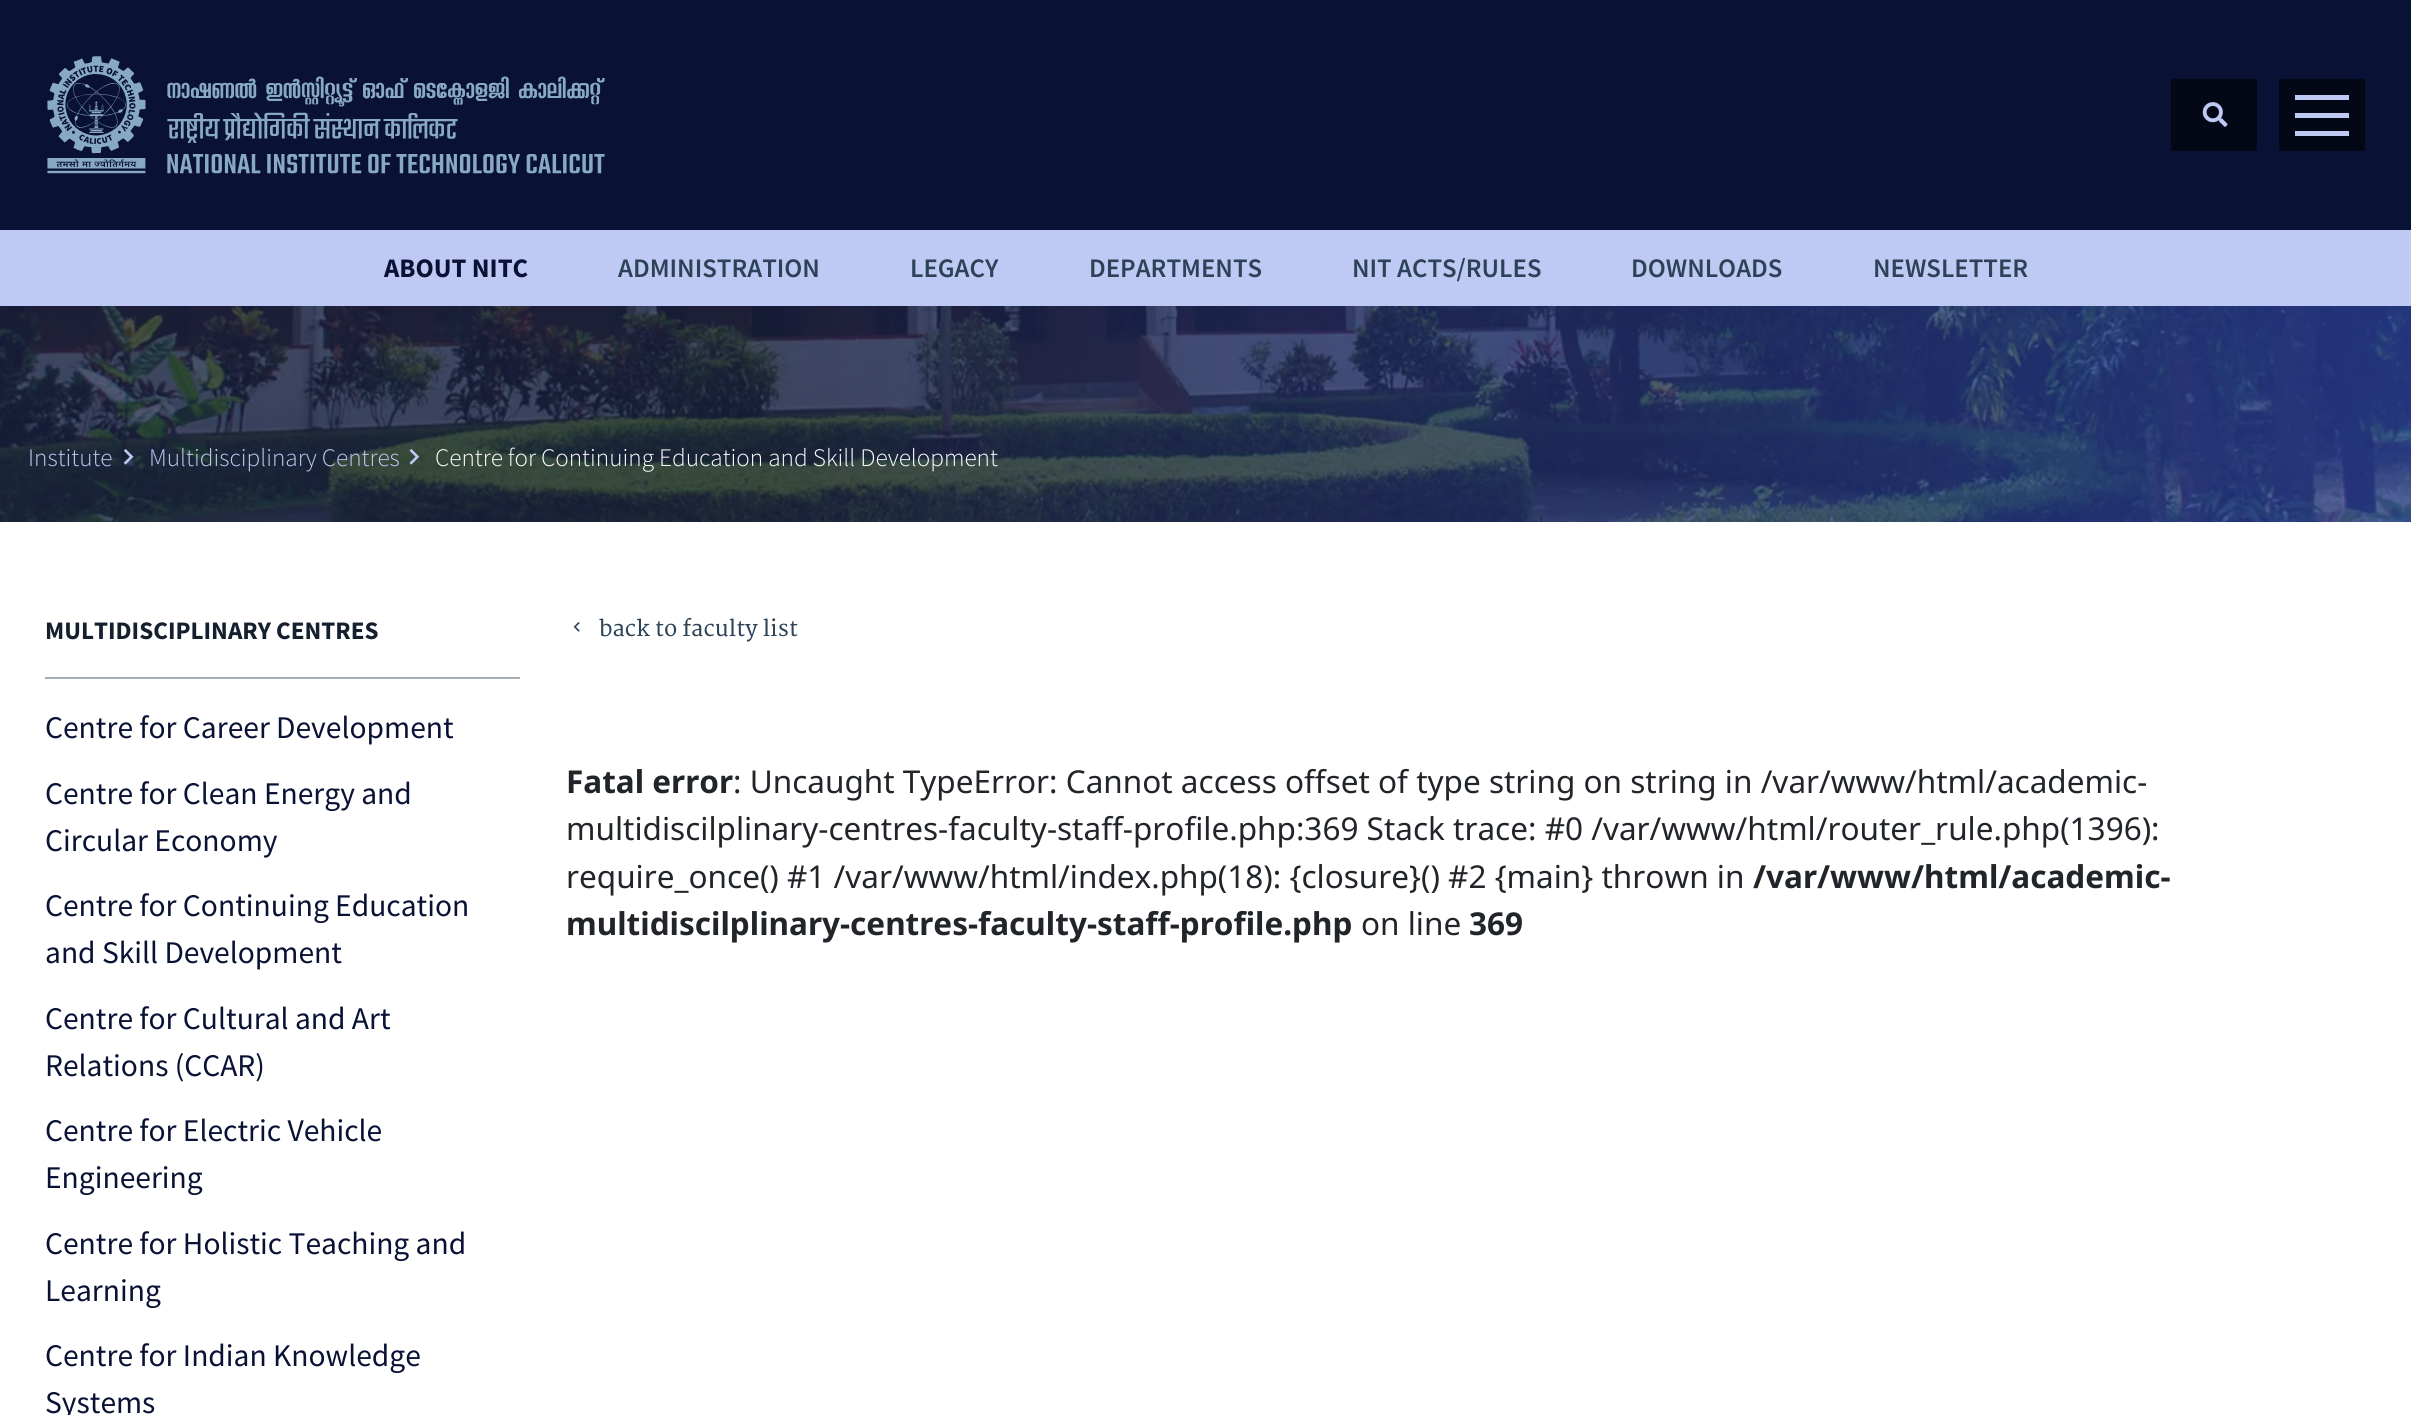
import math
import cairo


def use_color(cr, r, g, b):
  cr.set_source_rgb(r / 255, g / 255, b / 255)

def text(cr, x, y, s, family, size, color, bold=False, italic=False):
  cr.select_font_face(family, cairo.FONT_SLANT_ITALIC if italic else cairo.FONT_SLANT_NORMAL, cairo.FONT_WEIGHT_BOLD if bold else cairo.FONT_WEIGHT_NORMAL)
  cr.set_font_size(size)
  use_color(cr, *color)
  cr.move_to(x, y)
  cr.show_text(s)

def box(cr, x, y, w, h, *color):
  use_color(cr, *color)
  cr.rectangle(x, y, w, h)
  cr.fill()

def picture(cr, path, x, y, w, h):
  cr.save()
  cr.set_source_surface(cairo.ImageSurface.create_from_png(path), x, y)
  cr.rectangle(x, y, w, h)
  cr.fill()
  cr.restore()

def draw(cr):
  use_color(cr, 255, 255, 255)
  cr.paint()
  box(cr, 0, 0, 2411, 230, 9, 18, 53)
  picture(cr, "img_01.png", 47, 56, 558, 118)
  box(cr, 2171, 79, 86, 72, 4, 7, 22)
  picture(cr, "img_02.png", 2202, 102, 26, 25)
  box(cr, 2279, 79, 86, 72, 4, 7, 22)
  box(cr, 2295, 95, 54, 5, 190, 201, 244)
  box(cr, 2295, 113, 54, 5, 190, 201, 244)
  box(cr, 2295, 131, 54, 5, 190, 201, 244)
  box(cr, 0, 230, 2411, 76, 190, 201, 244)
  gradient = cairo.LinearGradient(-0.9, 418, 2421, 398)
  gradient.add_color_stop_rgba(0.32, 0.035, 0.071, 0.208, 1)
  gradient.add_color_stop_rgba(1, 0.102, 0.204, 0.6, 1)
  cr.set_source(gradient)
  cr.rectangle(0, 306, 2411, 216)
  cr.fill()
  picture(cr, "img_03.png", 0, 306, 2411, 216)
  picture(cr, "img_04.png", 123, 449, 11, 16)
  picture(cr, "img_05.png", 409, 449, 11, 16)
  box(cr, 45, 677, 475, 2, 164, 173, 178)
  picture(cr, "img_06.png", 573, 622, 7, 10)
  text(cr, 384, 277, "ABOUT NITC", "Source Sans Pro", 26.75, (9, 18, 53), bold=True)
  text(cr, 618, 277, "ADMINISTRATION", "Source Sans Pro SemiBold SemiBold", 26.75, (43, 66, 87))
  text(cr, 910, 277, "LEGACY", "Source Sans Pro SemiBold SemiBold", 26.75, (43, 66, 87))
  text(cr, 1089, 277, "DEPARTMENTS", "Source Sans Pro SemiBold SemiBold", 26.75, (43, 66, 87))
  text(cr, 1352, 277, "NIT ACTS/RULES", "Source Sans Pro SemiBold SemiBold", 26.75, (43, 66, 87))
  text(cr, 1631, 277, "DOWNLOADS", "Source Sans Pro SemiBold SemiBold", 26.75, (43, 66, 87))
  text(cr, 1873, 277, "NEWSLETTER", "Source Sans Pro SemiBold SemiBold", 26.75, (43, 66, 87))
  text(cr, 28, 466, "Institute", "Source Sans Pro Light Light", 25.2, (190, 201, 244))
  text(cr, 149, 466, "Multidisciplinary Centres", "Source Sans Pro Light Light", 25.2, (190, 201, 244))
  text(cr, 435, 466, "Centre for Continuing Education and Skill Development", "Source Sans Pro Light Light", 25.2, (255, 255, 255))
  text(cr, 45, 639, "MULTIDISCIPLINARY CENTRES", "Source Sans Pro", 25.2, (20, 32, 46), bold=True)
  text(cr, 45, 738, "Centre for Career Development", "Source Sans Pro", 31.5, (9, 18, 53))
  text(cr, 45, 804, "Centre for Clean Energy and", "Source Sans Pro", 31.5, (9, 18, 53))
  text(cr, 45, 851, "Circular Economy", "Source Sans Pro", 31.5, (9, 18, 53))
  text(cr, 45, 916, "Centre for Continuing Education", "Source Sans Pro", 31.5, (9, 18, 53))
  text(cr, 45, 963, "and Skill Development", "Source Sans Pro", 31.5, (9, 18, 53))
  text(cr, 45, 1029, "Centre for Cultural and Art", "Source Sans Pro", 31.5, (9, 18, 53))
  text(cr, 45, 1076, "Relations (CCAR)", "Source Sans Pro", 31.5, (9, 18, 53))
  text(cr, 45, 1141, "Centre for Electric Vehicle", "Source Sans Pro", 31.5, (9, 18, 53))
  text(cr, 45, 1188, "Engineering", "Source Sans Pro", 31.5, (9, 18, 53))
  text(cr, 45, 1254, "Centre for Holistic Teaching and", "Source Sans Pro", 31.5, (9, 18, 53))
  text(cr, 45, 1301, "Learning", "Source Sans Pro", 31.5, (9, 18, 53))
  text(cr, 45, 1366, "Centre for Indian Knowledge", "Source Sans Pro", 31.5, (9, 18, 53))
  text(cr, 45, 1413, "Systems", "Source Sans Pro", 31.5, (9, 18, 53))
  text(cr, 599, 636, "back to faculty list", "Martel SemiBold", 22, (43, 66, 87))
  text(cr, 566, 793, "Fatal error", "Noto Sans", 31.5, (33, 37, 41), bold=True)
  text(cr, 733, 793, ": Uncaught TypeError: Cannot access offset of type string on string in /var/www/html/academic-", "Noto Sans", 31.5, (33, 37, 41))
  text(cr, 566, 840, "multidiscilplinary-centres-faculty-staff-profile.php:369 Stack trace: #0 /var/www/html/router_rule.php(1396):", "Noto Sans", 31.5, (33, 37, 41))
  text(cr, 566, 888, "require_once() #1 /var/www/html/index.php(18): {closure}() #2 {main} thrown in", "Noto Sans", 31.5, (33, 37, 41))
  text(cr, 1753, 888, "/var/www/html/academic-", "Noto Sans", 31.5, (33, 37, 41), bold=True)
  text(cr, 566, 935, "multidiscilplinary-centres-faculty-staff-profile.php", "Noto Sans", 31.5, (33, 37, 41), bold=True)
  text(cr, 1361, 935, "on line", "Noto Sans", 31.5, (33, 37, 41))
  text(cr, 1469, 935, "369", "Noto Sans", 31.5, (33, 37, 41), bold=True)


surface = cairo.ImageSurface(cairo.FORMAT_RGB24, 2411, 1415)
cr = cairo.Context(surface)
options = cairo.FontOptions()
options.set_hint_metrics(cairo.HINT_METRICS_OFF)
options.set_hint_style(cairo.HINT_STYLE_NONE)
cr.set_font_options(options)
cr.set_miter_limit(4)
draw(cr)
surface.write_to_png("out.png")
